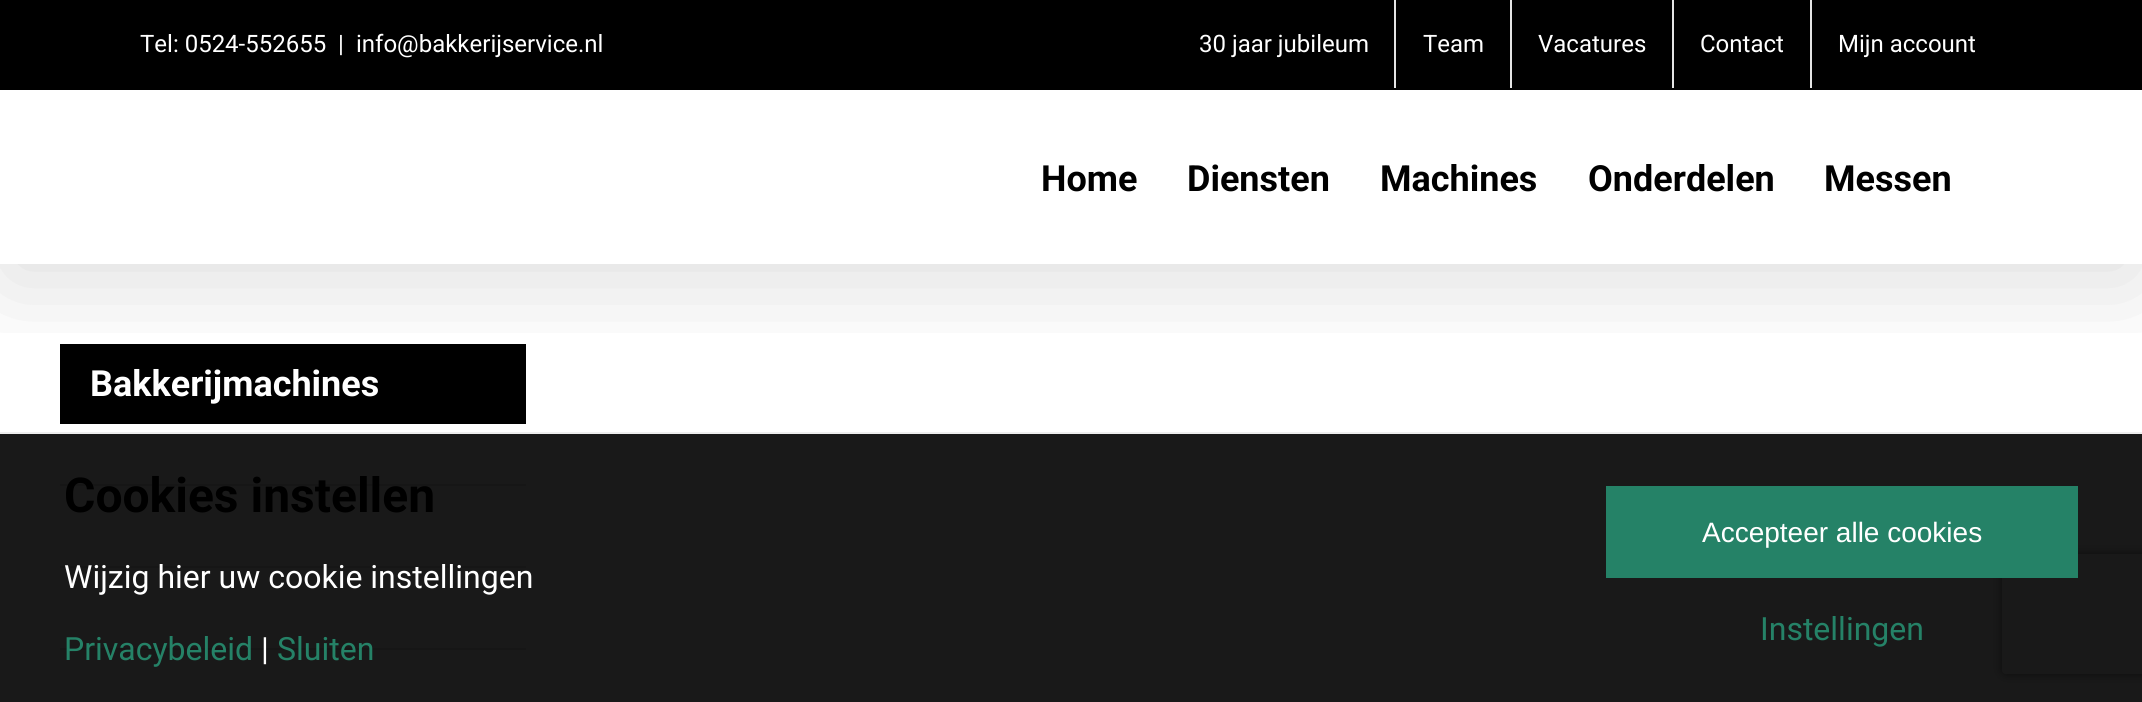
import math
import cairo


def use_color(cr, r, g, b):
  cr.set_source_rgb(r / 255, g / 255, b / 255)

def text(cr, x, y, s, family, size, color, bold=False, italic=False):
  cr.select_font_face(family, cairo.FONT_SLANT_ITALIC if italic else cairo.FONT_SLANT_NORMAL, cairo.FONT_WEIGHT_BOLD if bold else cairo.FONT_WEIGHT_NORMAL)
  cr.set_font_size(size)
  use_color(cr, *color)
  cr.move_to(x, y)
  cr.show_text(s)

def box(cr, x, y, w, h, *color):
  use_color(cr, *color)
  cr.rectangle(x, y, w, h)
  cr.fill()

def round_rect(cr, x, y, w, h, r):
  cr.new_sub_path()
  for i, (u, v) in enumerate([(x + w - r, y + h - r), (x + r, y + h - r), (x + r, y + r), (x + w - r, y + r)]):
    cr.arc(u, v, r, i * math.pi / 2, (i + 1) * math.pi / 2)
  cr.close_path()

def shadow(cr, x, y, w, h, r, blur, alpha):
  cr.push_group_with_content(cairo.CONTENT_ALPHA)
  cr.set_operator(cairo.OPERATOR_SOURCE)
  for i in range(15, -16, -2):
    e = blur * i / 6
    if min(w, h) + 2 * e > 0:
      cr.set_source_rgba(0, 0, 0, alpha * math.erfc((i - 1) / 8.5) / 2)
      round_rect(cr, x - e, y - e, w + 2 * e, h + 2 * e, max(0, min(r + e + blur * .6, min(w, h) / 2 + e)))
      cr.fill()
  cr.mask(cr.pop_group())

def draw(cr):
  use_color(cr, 255, 255, 255)
  cr.paint()
  box(cr, 60, 344, 466, 80, 0, 0, 0)
  cr.save()
  cr.rectangle(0, 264, 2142, 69)
  cr.clip()
  use_color(cr, 0, 0, 0)
  shadow(cr, 4, 24, 2134, 256, 0, 50, 0.14)
  cr.restore()
  box(cr, 0, 0, 2142, 90, 0, 0, 0)
  box(cr, 1394, 0, 2, 88, 229, 229, 229)
  box(cr, 1510, 0, 2, 88, 229, 229, 229)
  box(cr, 1672, 0, 2, 88, 229, 229, 229)
  box(cr, 1810, 0, 2, 88, 229, 229, 229)
  box(cr, 60, 484, 466, 2, 224, 222, 222)
  box(cr, 60, 566, 466, 2, 224, 222, 222)
  box(cr, 60, 648, 466, 2, 224, 222, 222)
  cr.save()
  cr.set_fill_rule(cairo.FILL_RULE_EVEN_ODD)
  cr.new_path()
  cr.move_to(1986, 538)
  cr.line_to(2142, 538)
  cr.line_to(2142, 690)
  cr.line_to(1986, 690)
  cr.close_path()
  cr.move_to(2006, 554)
  cr.line_to(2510, 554)
  cr.curve_to(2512, 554, 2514, 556, 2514, 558)
  cr.line_to(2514, 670)
  cr.curve_to(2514, 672, 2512, 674, 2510, 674)
  cr.line_to(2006, 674)
  cr.curve_to(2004, 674, 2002, 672, 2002, 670)
  cr.line_to(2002, 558)
  cr.curve_to(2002, 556, 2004, 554, 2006, 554)
  cr.close_path()
  cr.clip()
  use_color(cr, 128, 128, 128)
  shadow(cr, 2002, 554, 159, 120, 4, 5, 1)
  cr.restore()
  cr.set_source_rgba(0, 0, 0, 0.9)
  cr.rectangle(0, 434, 2142, 268)
  cr.fill()
  box(cr, 0, 432, 2142, 2, 238, 238, 238)
  box(cr, 1606, 486, 472, 92, 37, 130, 103)
  text(cr, 140, 52, "Tel: 0524-552655", "Roboto", 24, (255, 255, 255))
  text(cr, 338, 52, "|", "Roboto", 24, (255, 255, 255))
  text(cr, 356, 52, "info@bakkerijservice.nl", "Roboto", 24, (255, 255, 255))
  text(cr, 1199, 52, "30 jaar jubileum", "Roboto", 24, (255, 255, 255))
  text(cr, 1423, 52, "Team", "Roboto", 24, (255, 255, 255))
  text(cr, 1538, 52, "Vacatures", "Roboto", 24, (255, 255, 255))
  text(cr, 1700, 52, "Contact", "Roboto", 24, (255, 255, 255))
  text(cr, 1838, 52, "Mijn account", "Roboto", 24, (255, 255, 255))
  text(cr, 1041, 191, "Home", "Roboto", 36, (0, 0, 0), bold=True)
  text(cr, 1187, 191, "Diensten", "Roboto", 36, (0, 0, 0), bold=True)
  text(cr, 1380, 191, "Machines", "Roboto", 36, (0, 0, 0), bold=True)
  text(cr, 1588, 191, "Onderdelen", "Roboto", 36, (0, 0, 0), bold=True)
  text(cr, 1824, 191, "Messen", "Roboto", 36, (0, 0, 0), bold=True)
  text(cr, 90, 396, "Bakkerijmachines", "Roboto", 36, (255, 255, 255), bold=True)
  text(cr, 64, 512, "Cookies instellen", "Roboto", 48, (0, 0, 0), bold=True)
  text(cr, 64, 588, "Wijzig hier uw cookie instellingen", "Roboto", 32, (255, 255, 255))
  text(cr, 64, 660, "Privacybeleid", "Roboto", 32, (37, 130, 103))
  text(cr, 261, 660, "|", "Roboto", 32, (255, 255, 255))
  text(cr, 277, 660, "Sluiten", "Roboto", 32, (37, 130, 103))
  text(cr, 1702, 542, "Accepteer alle cookies", "Liberation Sans", 28, (255, 255, 255))
  text(cr, 1760, 640, "Instellingen", "Roboto", 32, (37, 130, 103))


surface = cairo.ImageSurface(cairo.FORMAT_RGB24, 2142, 702)
cr = cairo.Context(surface)
options = cairo.FontOptions()
options.set_hint_metrics(cairo.HINT_METRICS_OFF)
options.set_hint_style(cairo.HINT_STYLE_NONE)
cr.set_font_options(options)
cr.set_miter_limit(4)
draw(cr)
surface.write_to_png("out.png")
